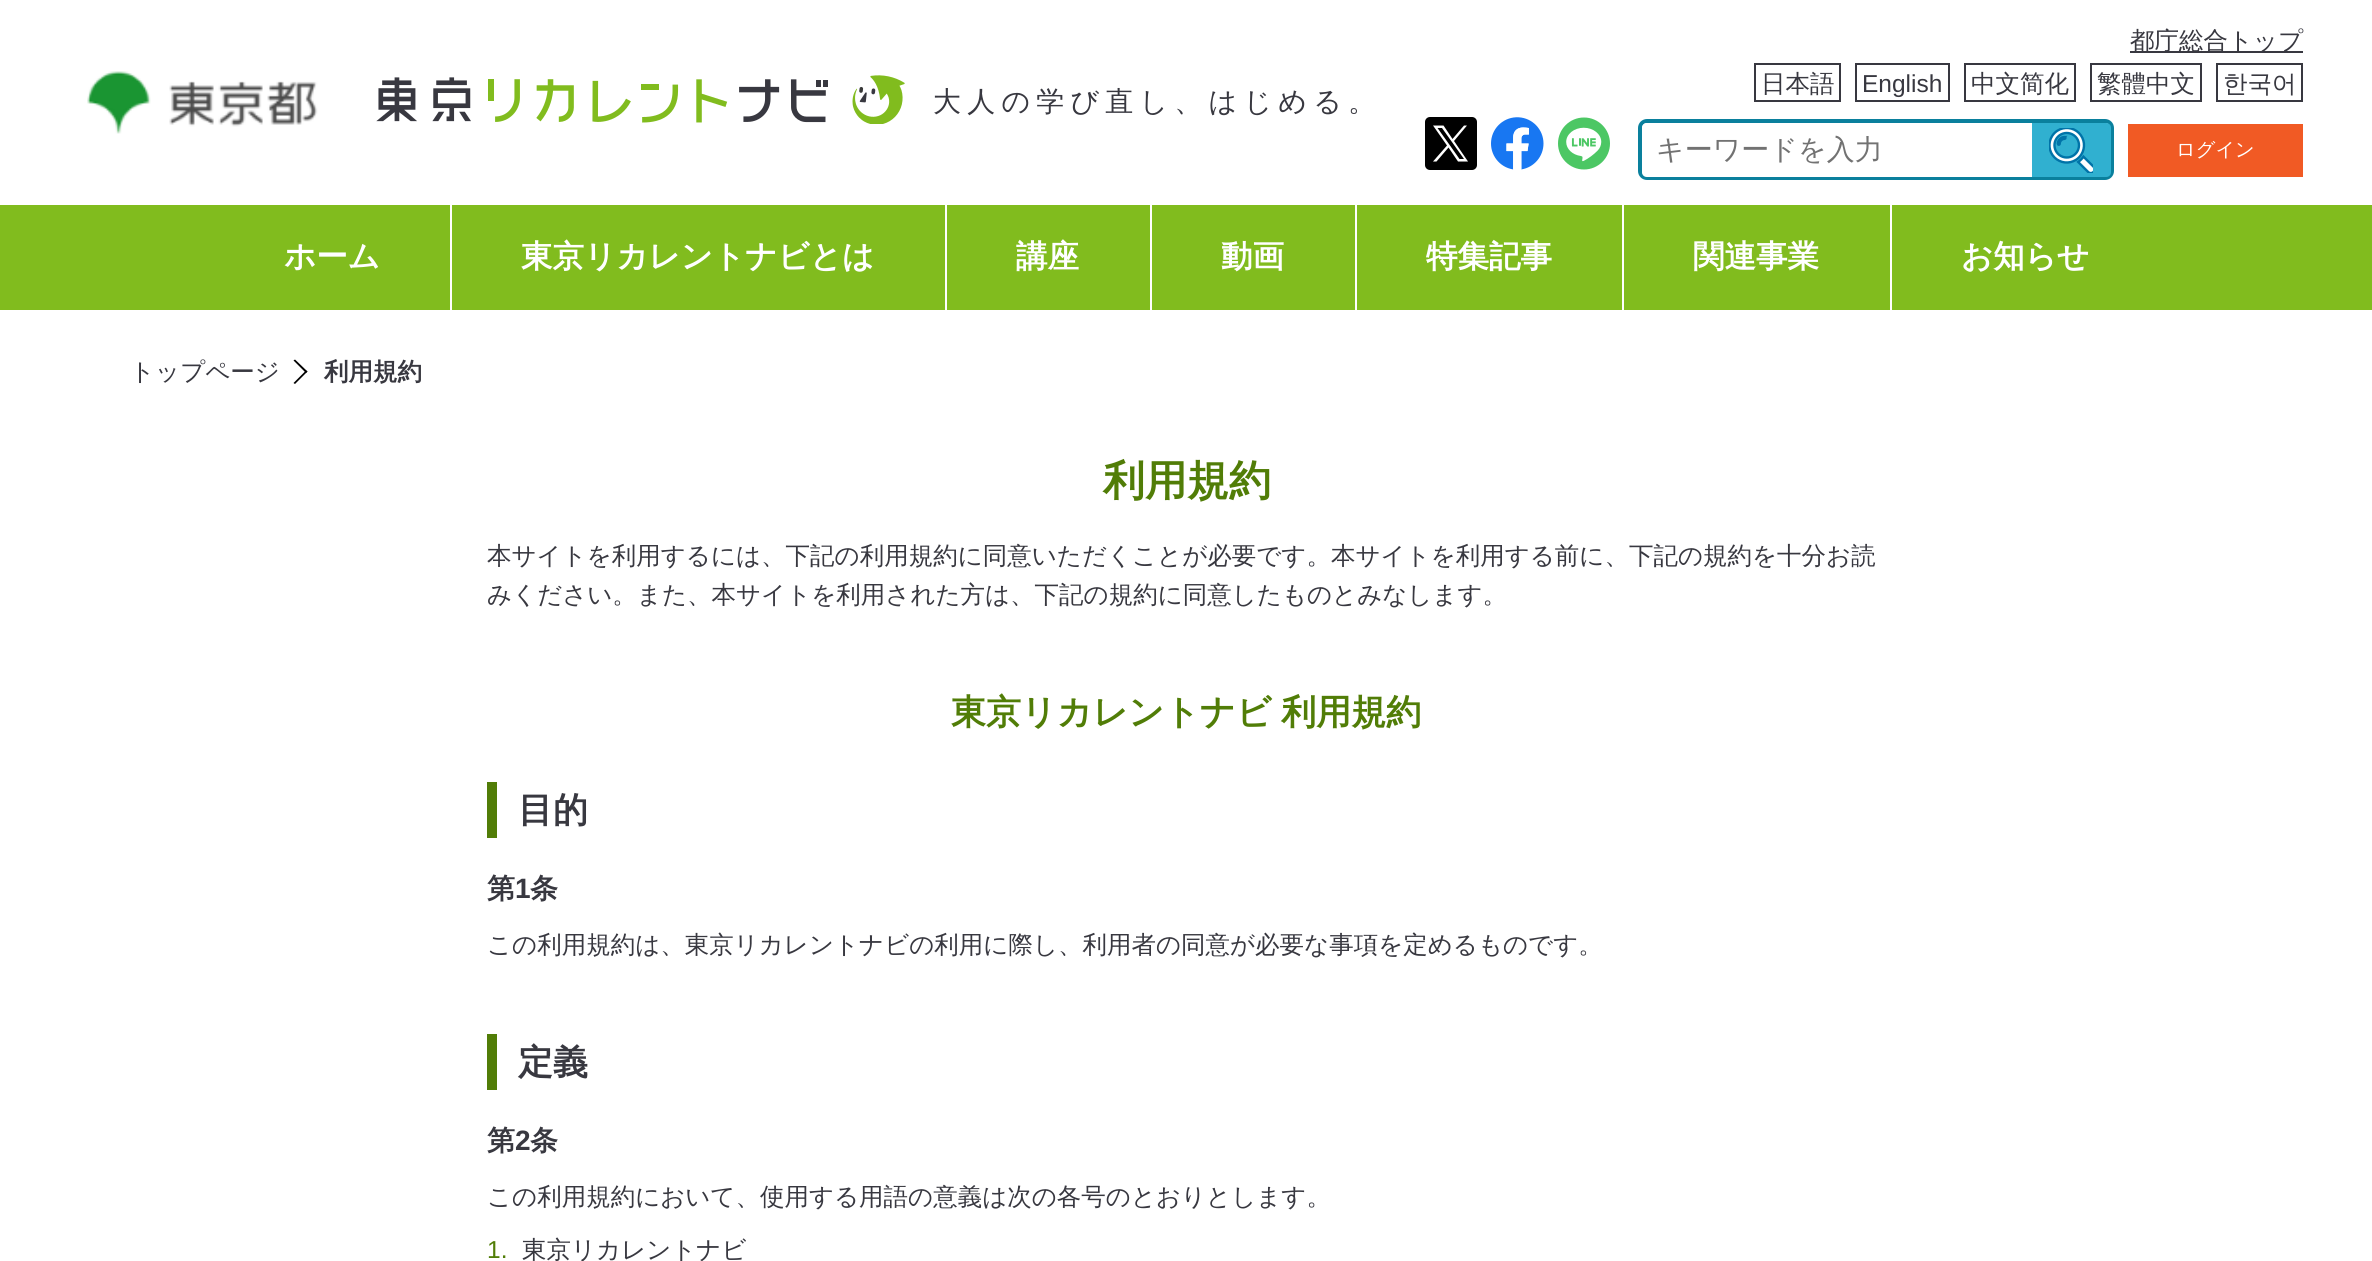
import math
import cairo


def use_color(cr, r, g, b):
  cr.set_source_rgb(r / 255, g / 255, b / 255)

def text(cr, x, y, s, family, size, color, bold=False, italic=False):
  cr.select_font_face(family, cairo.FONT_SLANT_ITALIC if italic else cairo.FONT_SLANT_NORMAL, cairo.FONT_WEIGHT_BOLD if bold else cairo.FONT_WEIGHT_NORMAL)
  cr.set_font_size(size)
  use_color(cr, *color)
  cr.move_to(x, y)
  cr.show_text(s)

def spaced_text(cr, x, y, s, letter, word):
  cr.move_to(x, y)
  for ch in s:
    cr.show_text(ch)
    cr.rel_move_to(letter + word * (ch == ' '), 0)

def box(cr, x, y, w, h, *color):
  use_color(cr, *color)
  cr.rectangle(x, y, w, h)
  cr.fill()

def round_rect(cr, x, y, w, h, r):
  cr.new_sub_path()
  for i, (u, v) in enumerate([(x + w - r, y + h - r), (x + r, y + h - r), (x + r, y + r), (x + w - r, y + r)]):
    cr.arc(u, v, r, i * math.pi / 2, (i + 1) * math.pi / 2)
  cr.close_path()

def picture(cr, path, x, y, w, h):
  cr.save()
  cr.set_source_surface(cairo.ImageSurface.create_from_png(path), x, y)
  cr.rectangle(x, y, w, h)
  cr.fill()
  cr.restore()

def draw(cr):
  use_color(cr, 255, 255, 255)
  cr.paint()
  picture(cr, "img_01.png", 87, 71, 231, 63)
  picture(cr, "img_02.png", 376, 75, 529, 49)
  box(cr, 2130, 51, 173, 2, 56, 56, 64)
  cr.rectangle(1755, 64, 85, 37)
  cr.stroke()
  cr.rectangle(1856, 64, 93, 37)
  cr.stroke()
  cr.rectangle(1965, 64, 110, 37)
  cr.stroke()
  cr.rectangle(2091, 64, 110, 37)
  cr.stroke()
  cr.rectangle(2217, 64, 85, 37)
  cr.stroke()
  use_color(cr, 0, 0, 0)
  round_rect(cr, 1425, 117, 52, 53, 5)
  cr.fill()
  use_color(cr, 255, 255, 255)
  cr.new_path()
  cr.move_to(1454, 141)
  cr.line_to(1467, 125.5)
  cr.line_to(1464, 125.5)
  cr.line_to(1452.5, 139)
  cr.line_to(1443.5, 125.5)
  cr.line_to(1433, 125.5)
  cr.line_to(1447, 145.5)
  cr.line_to(1433, 161.5)
  cr.line_to(1436.5, 161.5)
  cr.line_to(1448.5, 147.5)
  cr.line_to(1458, 161.5)
  cr.line_to(1468, 161.5)
  cr.close_path()
  cr.move_to(1450, 145.5)
  cr.line_to(1437.5, 128)
  cr.line_to(1442, 128)
  cr.line_to(1464, 159)
  cr.line_to(1459.5, 159)
  cr.close_path()
  cr.fill()
  picture(cr, "img_03.png", 1491, 117, 53, 53)
  picture(cr, "img_04.png", 1558, 117, 52, 53)
  round_rect(cr, 1640, 121, 472, 57, 7)
  use_color(cr, 10, 128, 157)
  cr.set_line_width(4)
  cr.stroke()
  use_color(cr, 255, 255, 255)
  cr.new_path()
  cr.move_to(1647, 123)
  cr.line_to(2032, 123)
  cr.line_to(2032, 177)
  cr.line_to(1647, 177)
  cr.curve_to(1644, 177, 1642, 175, 1642, 172)
  cr.line_to(1642, 128)
  cr.curve_to(1642, 125, 1644, 123, 1647, 123)
  cr.close_path()
  cr.fill()
  use_color(cr, 48, 176, 208)
  cr.new_path()
  cr.move_to(2032, 123)
  cr.line_to(2106, 123)
  cr.curve_to(2109, 123, 2111, 125, 2111, 128)
  cr.line_to(2111, 172)
  cr.curve_to(2111, 175, 2109, 177, 2106, 177)
  cr.line_to(2032, 177)
  cr.close_path()
  cr.fill()
  picture(cr, "img_05.png", 2049, 128, 44, 45)
  box(cr, 2128, 124, 175, 53, 241, 90, 36)
  box(cr, 0, 205, 2372, 105, 129, 188, 30)
  box(cr, 450, 205, 2, 105, 255, 255, 255)
  box(cr, 945, 205, 2, 105, 255, 255, 255)
  box(cr, 1150, 205, 2, 105, 255, 255, 255)
  box(cr, 1355, 205, 2, 105, 255, 255, 255)
  box(cr, 1622, 205, 2, 105, 255, 255, 255)
  box(cr, 1890, 205, 2, 105, 255, 255, 255)
  use_color(cr, 0, 0, 0)
  cr.new_path()
  cr.move_to(293.5, 360.5)
  cr.line_to(295, 359.5)
  cr.line_to(307.5, 371.5)
  cr.line_to(306, 373)
  cr.close_path()
  cr.fill()
  cr.new_path()
  cr.move_to(293.5, 383)
  cr.line_to(306, 370.5)
  cr.line_to(307.5, 371.5)
  cr.line_to(295, 384)
  cr.close_path()
  cr.fill()
  box(cr, 487, 782, 10, 56, 81, 125, 7)
  box(cr, 487, 1034, 10, 56, 81, 125, 7)
  cr.select_font_face("WenQuanYi Zen Hei Medium")
  cr.set_font_size(28)
  use_color(cr, 56, 56, 64)
  spaced_text(cr, 933, 111, "大人の学び直し、はじめる。", 6.2, 0)
  text(cr, 2130, 49, "都庁総合トップ", "WenQuanYi Zen Hei Medium", 24.5, (56, 56, 64))
  text(cr, 1761, 92, "日本語", "WenQuanYi Zen Hei Medium", 24.5, (56, 56, 64))
  text(cr, 1862, 92, "English", "Liberation Sans", 24.5, (56, 56, 64))
  text(cr, 1971, 92, "中文简化", "WenQuanYi Zen Hei Medium", 24.5, (56, 56, 64))
  text(cr, 2097, 92, "繁體中文", "WenQuanYi Zen Hei Medium", 24.5, (56, 56, 64))
  text(cr, 2223, 92, "한국어", "WenQuanYi Zen Hei Medium", 24.5, (56, 56, 64))
  text(cr, 1656, 159, "キーワードを入力", "WenQuanYi Zen Hei Medium", 28, (114, 114, 114))
  text(cr, 2176, 156, "ログイン", "WenQuanYi Zen Hei Medium", 19.25, (255, 255, 255))
  text(cr, 284, 267, "ホーム", "WenQuanYi Zen Hei", 31.5, (255, 255, 255), bold=True)
  text(cr, 521, 267, "東京リカレントナビとは", "WenQuanYi Zen Hei", 31.5, (255, 255, 255), bold=True)
  text(cr, 1016, 267, "講座", "WenQuanYi Zen Hei", 31.5, (255, 255, 255), bold=True)
  text(cr, 1221, 267, "動画", "WenQuanYi Zen Hei", 31.5, (255, 255, 255), bold=True)
  text(cr, 1426, 267, "特集記事", "WenQuanYi Zen Hei", 31.5, (255, 255, 255), bold=True)
  text(cr, 1693, 267, "関連事業", "WenQuanYi Zen Hei", 31.5, (255, 255, 255), bold=True)
  text(cr, 1961, 267, "お知らせ", "WenQuanYi Zen Hei", 31.5, (255, 255, 255), bold=True)
  text(cr, 130, 380, "トップページ", "WenQuanYi Zen Hei Medium", 24.5, (56, 56, 64))
  text(cr, 324, 380, "利用規約", "WenQuanYi Zen Hei", 24.5, (56, 56, 64), bold=True)
  text(cr, 1103, 495, "利用規約", "WenQuanYi Zen Hei", 42, (81, 125, 7), bold=True)
  text(cr, 487, 564, "本サイトを利用するには、下記の利用規約に同意いただくことが必要です。本サイトを利用する前に、下記の規約を十分お読", "WenQuanYi Zen Hei Medium", 24.5, (56, 56, 64))
  text(cr, 487, 603, "みください。また、本サイトを利用された方は、下記の規約に同意したものとみなします。", "WenQuanYi Zen Hei Medium", 24.5, (56, 56, 64))
  cr.select_font_face("WenQuanYi Zen Hei", cairo.FONT_SLANT_NORMAL, cairo.FONT_WEIGHT_BOLD)
  cr.set_font_size(35)
  use_color(cr, 81, 125, 7)
  spaced_text(cr, 951, 724, "東京リカレントナビ 利用規約", 0, -1)
  text(cr, 518, 822, "目的", "WenQuanYi Zen Hei", 35, (56, 56, 64), bold=True)
  text(cr, 487, 898, "第", "WenQuanYi Zen Hei", 28, (56, 56, 64), bold=True)
  text(cr, 515, 898, "1", "Liberation Sans", 28, (56, 56, 64), bold=True)
  text(cr, 530, 898, "条", "WenQuanYi Zen Hei", 28, (56, 56, 64), bold=True)
  text(cr, 487, 953, "この利用規約は、東京リカレントナビの利用に際し、利用者の同意が必要な事項を定めるものです。", "WenQuanYi Zen Hei Medium", 24.5, (56, 56, 64))
  text(cr, 518, 1074, "定義", "WenQuanYi Zen Hei", 35, (56, 56, 64), bold=True)
  text(cr, 487, 1150, "第", "WenQuanYi Zen Hei", 28, (56, 56, 64), bold=True)
  text(cr, 515, 1150, "2", "Liberation Sans", 28, (56, 56, 64), bold=True)
  text(cr, 530, 1150, "条", "WenQuanYi Zen Hei", 28, (56, 56, 64), bold=True)
  text(cr, 487, 1205, "この利用規約において、使用する用語の意義は次の各号のとおりとします。", "WenQuanYi Zen Hei Medium", 24.5, (56, 56, 64))
  text(cr, 487, 1258, "1.", "Liberation Sans", 24.5, (81, 125, 7))
  text(cr, 522, 1258, "東京リカレントナビ", "WenQuanYi Zen Hei Medium", 24.5, (56, 56, 64))


surface = cairo.ImageSurface(cairo.FORMAT_RGB24, 2372, 1261)
cr = cairo.Context(surface)
options = cairo.FontOptions()
options.set_hint_metrics(cairo.HINT_METRICS_OFF)
options.set_hint_style(cairo.HINT_STYLE_NONE)
cr.set_font_options(options)
cr.set_miter_limit(4)
draw(cr)
surface.write_to_png("out.png")
